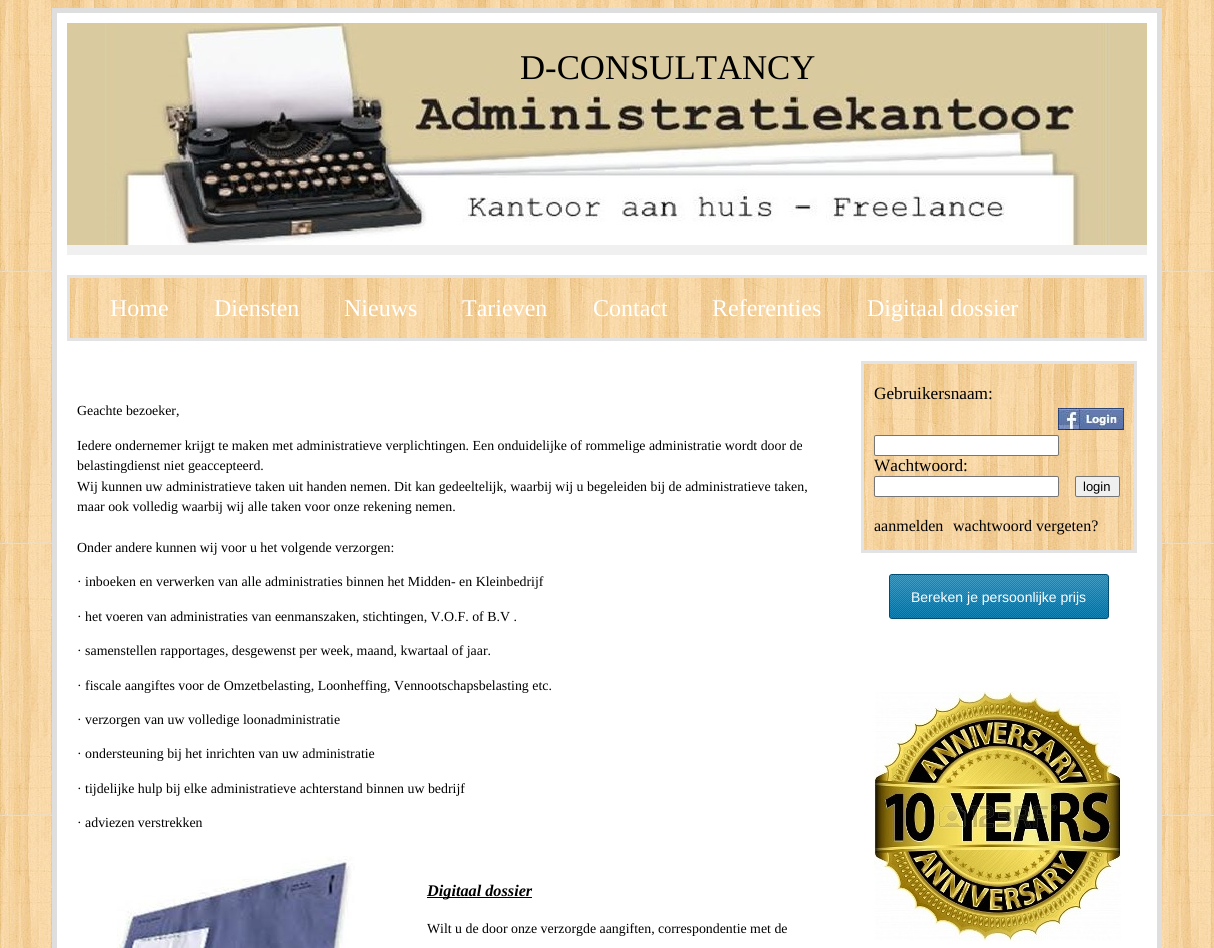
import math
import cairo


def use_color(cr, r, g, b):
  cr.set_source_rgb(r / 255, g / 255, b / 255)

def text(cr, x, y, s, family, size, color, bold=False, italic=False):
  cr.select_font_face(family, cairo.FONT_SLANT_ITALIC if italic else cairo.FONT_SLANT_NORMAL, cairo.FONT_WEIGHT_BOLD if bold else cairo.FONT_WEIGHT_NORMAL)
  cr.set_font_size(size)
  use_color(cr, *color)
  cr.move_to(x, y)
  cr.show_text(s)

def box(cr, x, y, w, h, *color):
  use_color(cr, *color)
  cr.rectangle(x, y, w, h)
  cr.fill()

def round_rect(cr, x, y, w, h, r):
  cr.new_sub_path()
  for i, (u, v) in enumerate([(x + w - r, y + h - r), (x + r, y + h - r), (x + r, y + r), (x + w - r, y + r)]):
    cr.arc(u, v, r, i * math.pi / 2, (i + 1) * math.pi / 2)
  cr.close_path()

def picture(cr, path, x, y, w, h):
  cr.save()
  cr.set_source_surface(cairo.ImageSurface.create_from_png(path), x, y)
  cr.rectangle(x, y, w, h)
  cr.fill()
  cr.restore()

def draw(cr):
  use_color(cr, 255, 255, 255)
  cr.paint()
  picture(cr, "img_01.png", 0, 0, 1214, 948)
  use_color(cr, 255, 255, 255)
  cr.rectangle(54.5, 10.5, 1105, 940)
  cr.fill_preserve()
  use_color(cr, 222, 222, 222)
  cr.set_line_width(5)
  cr.stroke()
  box(cr, 67, 23, 1080, 222, 217, 202, 159)
  picture(cr, "img_02.png", 105, 23, 1005, 222)
  box(cr, 67, 245, 1080, 10, 240, 240, 240)
  picture(cr, "img_03.png", 70, 278, 1074, 60)
  cr.rectangle(68.5, 276.5, 1077, 63)
  use_color(cr, 227, 227, 227)
  cr.set_line_width(3)
  cr.stroke()
  picture(cr, "img_04.png", 117, 856, 238, 92)
  box(cr, 427, 897, 105, 1, 0, 0, 0)
  picture(cr, "img_05.png", 864, 364, 270, 186)
  cr.rectangle(862.5, 362.5, 273, 189)
  use_color(cr, 227, 227, 227)
  cr.stroke()
  picture(cr, "img_06.png", 1058, 408, 66, 22)
  use_color(cr, 255, 255, 255)
  round_rect(cr, 874.5, 435.5, 184, 20, 1.5)
  cr.fill_preserve()
  use_color(cr, 118, 118, 118)
  cr.set_line_width(1)
  cr.stroke()
  use_color(cr, 255, 255, 255)
  round_rect(cr, 874.5, 476.5, 184, 20, 1.5)
  cr.fill_preserve()
  use_color(cr, 118, 118, 118)
  cr.stroke()
  use_color(cr, 239, 239, 239)
  round_rect(cr, 1075.5, 476.5, 44, 20, 1.5)
  cr.fill_preserve()
  use_color(cr, 118, 118, 118)
  cr.stroke()
  picture(cr, "img_07.png", 889, 574, 220, 45)
  picture(cr, "img_08.png", 874, 691, 247, 250)
  text(cr, 520, 79, "D-CONSULTANCY", "Liberation Serif", 34.75, (0, 0, 0))
  text(cr, 110, 316, "Home", "Liberation Serif", 24, (255, 255, 255))
  text(cr, 214, 316, "Diensten", "Liberation Serif", 24, (255, 255, 255))
  text(cr, 344, 316, "Nieuws", "Liberation Serif", 24, (255, 255, 255))
  text(cr, 462, 316, "Tarieven", "Liberation Serif", 24, (255, 255, 255))
  text(cr, 593, 316, "Contact", "Liberation Serif", 24, (255, 255, 255))
  text(cr, 712, 316, "Referenties", "Liberation Serif", 24, (255, 255, 255))
  text(cr, 867, 316, "Digitaal dossier", "Liberation Serif", 24, (255, 255, 255))
  text(cr, 77, 415, "Geachte bezoeker,", "Liberation Serif", 13.87, (0, 0, 0))
  text(cr, 77, 450, "Iedere ondernemer krijgt te maken met administratieve verplichtingen. Een onduidelijke of rommelige administratie wordt door de", "Liberation Serif", 13.87, (0, 0, 0))
  text(cr, 77, 470, "belastingdienst niet geaccepteerd.", "Liberation Serif", 13.87, (0, 0, 0))
  text(cr, 77, 491, "Wij kunnen uw administratieve taken uit handen nemen. Dit kan gedeeltelijk, waarbij wij u begeleiden bij de administratieve taken,", "Liberation Serif", 13.87, (0, 0, 0))
  text(cr, 77, 511, "maar ook volledig waarbij wij alle taken voor onze rekening nemen.", "Liberation Serif", 13.87, (0, 0, 0))
  text(cr, 77, 552, "Onder andere kunnen wij voor u het volgende verzorgen:", "Liberation Serif", 13.87, (0, 0, 0))
  text(cr, 77, 586, "· inboeken en verwerken van alle administraties binnen het Midden- en Kleinbedrijf", "Liberation Serif", 13.87, (0, 0, 0))
  text(cr, 77, 621, "· het voeren van administraties van eenmanszaken, stichtingen, V.O.F. of B.V .", "Liberation Serif", 13.87, (0, 0, 0))
  text(cr, 77, 655, "· samenstellen rapportages, desgewenst per week, maand, kwartaal of jaar.", "Liberation Serif", 13.87, (0, 0, 0))
  text(cr, 77, 690, "· fiscale aangiftes voor de Omzetbelasting, Loonheffing, Vennootschapsbelasting etc.", "Liberation Serif", 13.87, (0, 0, 0))
  text(cr, 77, 724, "· verzorgen van uw volledige loonadministratie", "Liberation Serif", 13.87, (0, 0, 0))
  text(cr, 77, 758, "· ondersteuning bij het inrichten van uw administratie", "Liberation Serif", 13.87, (0, 0, 0))
  text(cr, 77, 793, "· tijdelijke hulp bij elke administratieve achterstand binnen uw bedrijf", "Liberation Serif", 13.87, (0, 0, 0))
  text(cr, 77, 827, "· adviezen verstrekken", "Liberation Serif", 13.87, (0, 0, 0))
  text(cr, 427, 896, "Digitaal dossier", "Liberation Serif", 16.25, (0, 0, 0), bold=True, italic=True)
  text(cr, 427, 933, "Wilt u de door onze verzorgde aangiften, correspondentie met de", "Liberation Serif", 13.87, (0, 0, 0))
  text(cr, 874, 399, "Gebruikersnaam:", "Liberation Serif", 17.25, (0, 0, 0))
  text(cr, 874, 471, "Wachtwoord:", "Liberation Serif", 17.25, (0, 0, 0))
  text(cr, 1083, 491, "login", "Liberation Sans", 13, (0, 0, 0))
  text(cr, 874, 531, "aanmelden", "Liberation Serif", 16, (0, 0, 0))
  text(cr, 953, 531, "wachtwoord vergeten?", "Liberation Serif", 16, (0, 0, 0))
  text(cr, 911, 602, "Bereken je persoonlijke prijs", "Liberation Sans", 14, (255, 255, 255))


surface = cairo.ImageSurface(cairo.FORMAT_RGB24, 1214, 948)
cr = cairo.Context(surface)
options = cairo.FontOptions()
options.set_hint_metrics(cairo.HINT_METRICS_OFF)
options.set_hint_style(cairo.HINT_STYLE_NONE)
cr.set_font_options(options)
cr.set_miter_limit(4)
draw(cr)
surface.write_to_png("out.png")
